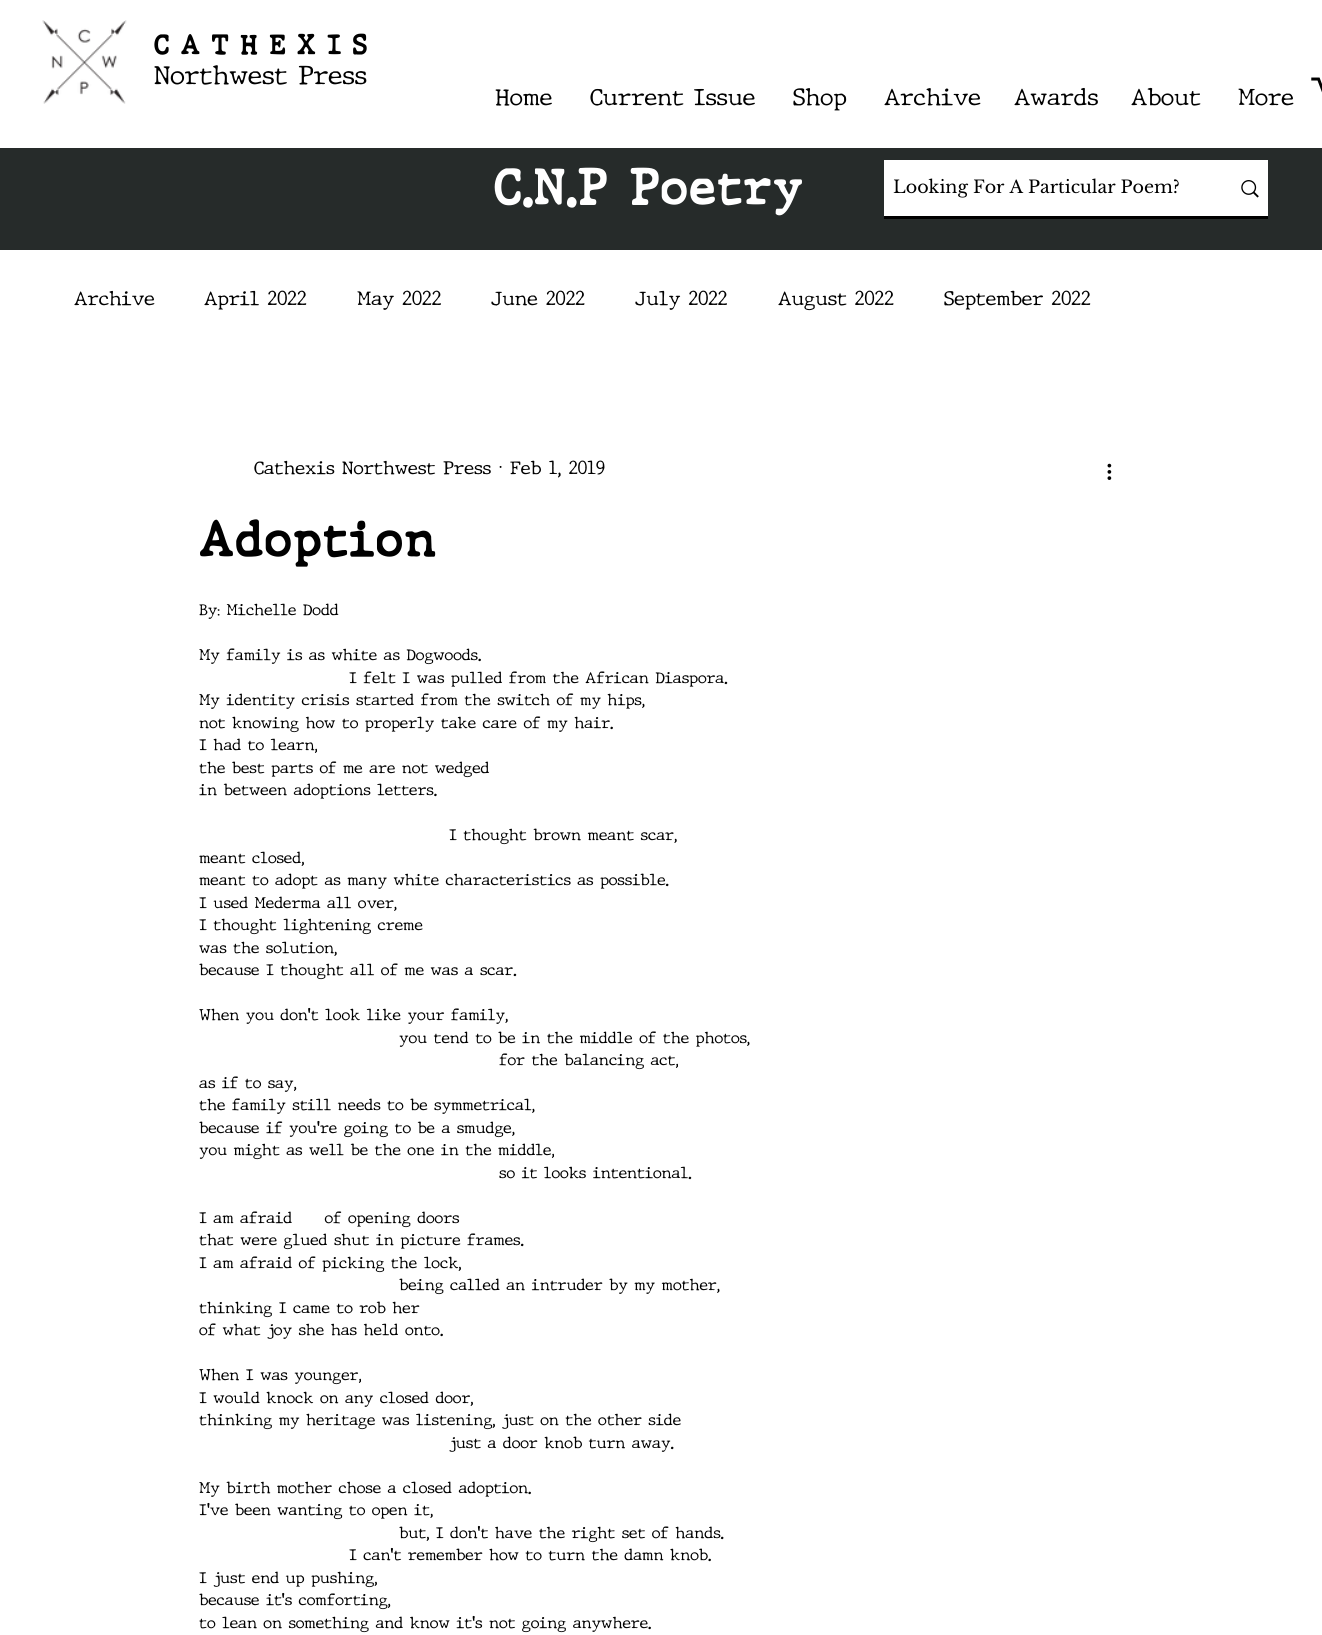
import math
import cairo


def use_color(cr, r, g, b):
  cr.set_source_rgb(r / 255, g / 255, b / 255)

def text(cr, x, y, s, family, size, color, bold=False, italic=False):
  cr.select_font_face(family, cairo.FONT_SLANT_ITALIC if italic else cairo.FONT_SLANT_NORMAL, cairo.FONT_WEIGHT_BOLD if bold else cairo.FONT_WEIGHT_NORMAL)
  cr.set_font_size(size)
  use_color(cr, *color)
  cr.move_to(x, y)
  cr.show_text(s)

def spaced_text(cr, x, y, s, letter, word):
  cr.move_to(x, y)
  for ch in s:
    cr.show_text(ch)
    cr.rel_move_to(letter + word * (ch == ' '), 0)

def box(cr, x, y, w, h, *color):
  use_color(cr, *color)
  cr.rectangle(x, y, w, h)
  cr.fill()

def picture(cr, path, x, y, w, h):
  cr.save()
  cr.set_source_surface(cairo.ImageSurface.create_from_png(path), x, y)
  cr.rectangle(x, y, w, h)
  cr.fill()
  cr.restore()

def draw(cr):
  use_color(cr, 255, 255, 255)
  cr.paint()
  picture(cr, "img_01.png", 42, 20, 85, 84)
  picture(cr, "img_02.png", 1311, 77, 11, 16)
  box(cr, 0, 148, 1322, 102, 38, 43, 42)
  box(cr, 884, 216, 384, 3, 0, 0, 0)
  box(cr, 884, 160, 384, 56, 255, 255, 255)
  picture(cr, "img_03.png", 1241, 180, 18, 18)
  picture(cr, "img_04.png", 1107, 463, 5, 17)
  cr.select_font_face("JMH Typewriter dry", cairo.FONT_SLANT_NORMAL, cairo.FONT_WEIGHT_BOLD)
  cr.set_font_size(27.5)
  use_color(cr, 0, 0, 0)
  spaced_text(cr, 154, 54, "CATHEXIS", 11, 0)
  text(cr, 154, 84, "Northwest Press", "JMH Typewriter dry Thin", 25, (0, 0, 0))
  text(cr, 495, 105, "Home", "JMH Typewriter dry Thin", 22.5, (0, 0, 0))
  text(cr, 590, 105, "Current Issue", "JMH Typewriter dry Thin", 22.5, (0, 0, 0))
  text(cr, 793, 105, "Shop", "JMH Typewriter dry Thin", 22.5, (0, 0, 0))
  text(cr, 884, 105, "Archive", "JMH Typewriter dry Thin", 22.5, (0, 0, 0))
  text(cr, 1014, 105, "Awards", "JMH Typewriter dry Thin", 22.5, (0, 0, 0))
  text(cr, 1131, 105, "About", "JMH Typewriter dry Thin", 22.5, (0, 0, 0))
  text(cr, 1238, 105, "More", "JMH Typewriter dry Thin", 22.5, (0, 0, 0))
  text(cr, 494, 204, "C.N.P Poetry", "JMH Typewriter dry", 50, (255, 255, 255), bold=True)
  text(cr, 893, 193, "Looking For A Particular Poem?", "Libre Baskerville", 17.5, (0, 0, 0))
  text(cr, 74, 305, "Archive", "JMH Typewriter dry Thin", 18.75, (0, 0, 0))
  text(cr, 204, 305, "April 2022", "JMH Typewriter dry Thin", 18.75, (0, 0, 0))
  text(cr, 357, 305, "May 2022", "JMH Typewriter dry Thin", 18.75, (0, 0, 0))
  text(cr, 491, 305, "June 2022", "JMH Typewriter dry Thin", 18.75, (0, 0, 0))
  text(cr, 635, 305, "July 2022", "JMH Typewriter dry Thin", 18.75, (0, 0, 0))
  text(cr, 778, 305, "August 2022", "JMH Typewriter dry Thin", 18.75, (0, 0, 0))
  text(cr, 944, 305, "September 2022", "JMH Typewriter dry Thin", 18.75, (0, 0, 0))
  text(cr, 254, 474, "Cathexis Northwest Press · Feb 1, 2019", "JMH Typewriter dry Thin", 17.5, (0, 0, 0))
  text(cr, 199, 556, "Adoption", "JMH Typewriter dry", 50, (0, 0, 0), bold=True)
  text(cr, 199, 615, "By: Michelle Dodd", "JMH Typewriter dry Thin", 15, (0, 0, 0))
  text(cr, 199, 660, "My family is as white as Dogwoods.", "JMH Typewriter dry Thin", 15, (0, 0, 0))
  text(cr, 349, 683, "I felt I was pulled from the African Diaspora.", "JMH Typewriter dry Thin", 15, (0, 0, 0))
  text(cr, 199, 705, "My identity crisis started from the switch of my hips,", "JMH Typewriter dry Thin", 15, (0, 0, 0))
  text(cr, 199, 728, "not knowing how to properly take care of my hair.", "JMH Typewriter dry Thin", 15, (0, 0, 0))
  text(cr, 199, 750, "I had to learn,", "JMH Typewriter dry Thin", 15, (0, 0, 0))
  text(cr, 199, 773, "the best parts of me are not wedged", "JMH Typewriter dry Thin", 15, (0, 0, 0))
  text(cr, 199, 795, "in between adoptions letters.", "JMH Typewriter dry Thin", 15, (0, 0, 0))
  text(cr, 449, 840, "I thought brown meant scar,", "JMH Typewriter dry Thin", 15, (0, 0, 0))
  text(cr, 199, 863, "meant closed,", "JMH Typewriter dry Thin", 15, (0, 0, 0))
  text(cr, 199, 885, "meant to adopt as many white characteristics as possible.", "JMH Typewriter dry Thin", 15, (0, 0, 0))
  text(cr, 199, 908, "I used Mederma all over,", "JMH Typewriter dry Thin", 15, (0, 0, 0))
  text(cr, 199, 930, "I thought lightening creme", "JMH Typewriter dry Thin", 15, (0, 0, 0))
  text(cr, 199, 953, "was the solution,", "JMH Typewriter dry Thin", 15, (0, 0, 0))
  text(cr, 199, 975, "because I thought all of me was a scar.", "JMH Typewriter dry Thin", 15, (0, 0, 0))
  text(cr, 199, 1020, "When you don’t look like your family,", "JMH Typewriter dry Thin", 15, (0, 0, 0))
  text(cr, 399, 1043, "you tend to be in the middle of the photos,", "JMH Typewriter dry Thin", 15, (0, 0, 0))
  text(cr, 499, 1065, "for the balancing act,", "JMH Typewriter dry Thin", 15, (0, 0, 0))
  text(cr, 199, 1088, "as if to say,", "JMH Typewriter dry Thin", 15, (0, 0, 0))
  text(cr, 199, 1110, "the family still needs to be symmetrical,", "JMH Typewriter dry Thin", 15, (0, 0, 0))
  text(cr, 199, 1133, "because if you’re going to be a smudge,", "JMH Typewriter dry Thin", 15, (0, 0, 0))
  text(cr, 199, 1155, "you might as well be the one in the middle,", "JMH Typewriter dry Thin", 15, (0, 0, 0))
  text(cr, 499, 1178, "so it looks intentional.", "JMH Typewriter dry Thin", 15, (0, 0, 0))
  text(cr, 199, 1223, "I am afraid     of opening doors", "JMH Typewriter dry Thin", 15, (0, 0, 0))
  text(cr, 199, 1245, "that were glued shut in picture frames.", "JMH Typewriter dry Thin", 15, (0, 0, 0))
  text(cr, 199, 1268, "I am afraid of picking the lock,", "JMH Typewriter dry Thin", 15, (0, 0, 0))
  text(cr, 399, 1290, "being called an intruder by my mother,", "JMH Typewriter dry Thin", 15, (0, 0, 0))
  text(cr, 199, 1313, "thinking I came to rob her", "JMH Typewriter dry Thin", 15, (0, 0, 0))
  text(cr, 199, 1335, "of what joy she has held onto.", "JMH Typewriter dry Thin", 15, (0, 0, 0))
  text(cr, 199, 1380, "When I was younger,", "JMH Typewriter dry Thin", 15, (0, 0, 0))
  text(cr, 199, 1403, "I would knock on any closed door,", "JMH Typewriter dry Thin", 15, (0, 0, 0))
  text(cr, 199, 1425, "thinking my heritage was listening, just on the other side", "JMH Typewriter dry Thin", 15, (0, 0, 0))
  text(cr, 449, 1448, "just a door knob turn away.", "JMH Typewriter dry Thin", 15, (0, 0, 0))
  text(cr, 199, 1493, "My birth mother chose a closed adoption.", "JMH Typewriter dry Thin", 15, (0, 0, 0))
  text(cr, 199, 1515, "I’ve been wanting to open it,", "JMH Typewriter dry Thin", 15, (0, 0, 0))
  text(cr, 399, 1538, "but, I don’t have the right set of hands.", "JMH Typewriter dry Thin", 15, (0, 0, 0))
  text(cr, 349, 1560, "I can’t remember how to turn the damn knob.", "JMH Typewriter dry Thin", 15, (0, 0, 0))
  text(cr, 199, 1583, "I just end up pushing,", "JMH Typewriter dry Thin", 15, (0, 0, 0))
  text(cr, 199, 1605, "because it's comforting,", "JMH Typewriter dry Thin", 15, (0, 0, 0))
  text(cr, 199, 1628, "to lean on something and know it’s not going anywhere.", "JMH Typewriter dry Thin", 15, (0, 0, 0))


surface = cairo.ImageSurface(cairo.FORMAT_RGB24, 1322, 1635)
cr = cairo.Context(surface)
options = cairo.FontOptions()
options.set_hint_metrics(cairo.HINT_METRICS_OFF)
options.set_hint_style(cairo.HINT_STYLE_NONE)
cr.set_font_options(options)
cr.set_miter_limit(4)
draw(cr)
surface.write_to_png("out.png")
